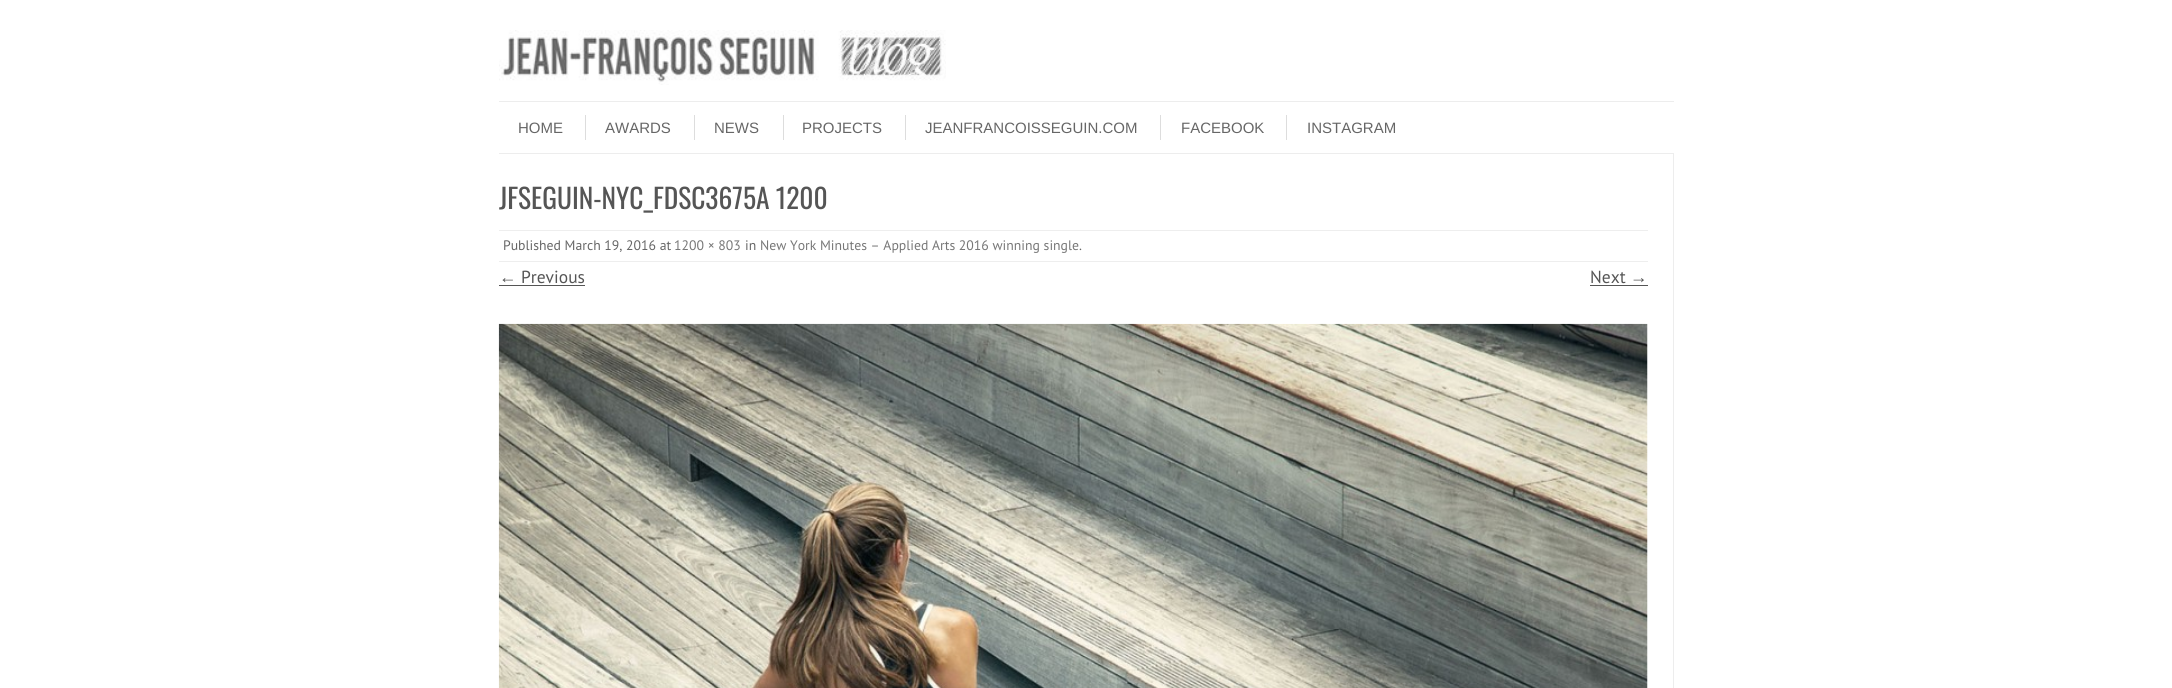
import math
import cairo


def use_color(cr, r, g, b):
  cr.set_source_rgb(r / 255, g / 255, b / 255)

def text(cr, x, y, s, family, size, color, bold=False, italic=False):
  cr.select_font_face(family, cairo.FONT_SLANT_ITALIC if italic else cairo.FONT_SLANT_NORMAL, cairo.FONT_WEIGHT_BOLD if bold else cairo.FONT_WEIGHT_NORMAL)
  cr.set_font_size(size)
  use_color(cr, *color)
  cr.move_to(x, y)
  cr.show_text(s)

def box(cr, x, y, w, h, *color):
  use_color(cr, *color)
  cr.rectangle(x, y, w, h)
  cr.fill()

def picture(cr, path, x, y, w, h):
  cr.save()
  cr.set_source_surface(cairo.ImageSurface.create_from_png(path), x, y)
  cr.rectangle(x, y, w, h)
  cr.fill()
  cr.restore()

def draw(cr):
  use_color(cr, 255, 255, 255)
  cr.paint()
  picture(cr, "img_01.png", 499, 30, 447, 55)
  box(cr, 499, 101, 1175, 1, 237, 237, 237)
  box(cr, 499, 153, 1175, 1, 237, 237, 237)
  box(cr, 585, 115, 1, 25, 221, 221, 221)
  box(cr, 694, 115, 1, 25, 221, 221, 221)
  box(cr, 783, 115, 1, 25, 221, 221, 221)
  box(cr, 905, 115, 1, 25, 221, 221, 221)
  box(cr, 1160, 115, 1, 25, 221, 221, 221)
  box(cr, 1286, 115, 1, 25, 221, 221, 221)
  box(cr, 1673, 154, 1, 534, 237, 237, 237)
  box(cr, 499, 230, 1149, 1, 238, 238, 238)
  box(cr, 499, 261, 1149, 1, 238, 238, 238)
  box(cr, 499, 285, 86, 1, 85, 85, 85)
  box(cr, 1590, 285, 58, 1, 85, 85, 85)
  picture(cr, "img_02.png", 498, 323, 1150, 365)
  text(cr, 518, 133, "HOME", "Liberation Sans", 15, (102, 102, 102))
  text(cr, 605, 133, "AWARDS", "Liberation Sans", 15, (102, 102, 102))
  text(cr, 714, 133, "NEWS", "Liberation Sans", 15, (102, 102, 102))
  text(cr, 802, 133, "PROJECTS", "Liberation Sans", 15, (102, 102, 102))
  text(cr, 925, 133, "JEANFRANCOISSEGUIN.COM", "Liberation Sans", 15, (102, 102, 102))
  text(cr, 1181, 133, "FACEBOOK", "Liberation Sans", 15, (102, 102, 102))
  text(cr, 1307, 133, "INSTAGRAM", "Liberation Sans", 15, (102, 102, 102))
  text(cr, 499, 209, "JFSEGUIN-NYC_FDSC3675A 1200", "Oswald", 27.5, (85, 85, 85))
  text(cr, 503, 250, "Published March 19, 2016 at", "PT Sans", 13.75, (102, 102, 102))
  text(cr, 674, 250, "1200 × 803", "PT Sans", 13.75, (119, 119, 119))
  text(cr, 745, 250, "in", "PT Sans", 13.75, (102, 102, 102))
  text(cr, 760, 250, "New York Minutes – Applied Arts 2016 winning single", "PT Sans", 13.75, (119, 119, 119))
  text(cr, 1079, 250, ".", "PT Sans", 13.75, (102, 102, 102))
  text(cr, 499, 283, "←", "Liberation Sans", 17.5, (85, 85, 85))
  text(cr, 521, 283, "Previous", "PT Sans", 17.5, (85, 85, 85))
  text(cr, 1590, 283, "Next", "PT Sans", 17.5, (85, 85, 85))
  text(cr, 1630, 283, "→", "Liberation Sans", 17.5, (85, 85, 85))


surface = cairo.ImageSurface(cairo.FORMAT_RGB24, 2172, 688)
cr = cairo.Context(surface)
options = cairo.FontOptions()
options.set_hint_metrics(cairo.HINT_METRICS_OFF)
options.set_hint_style(cairo.HINT_STYLE_NONE)
cr.set_font_options(options)
cr.set_miter_limit(4)
draw(cr)
surface.write_to_png("out.png")
